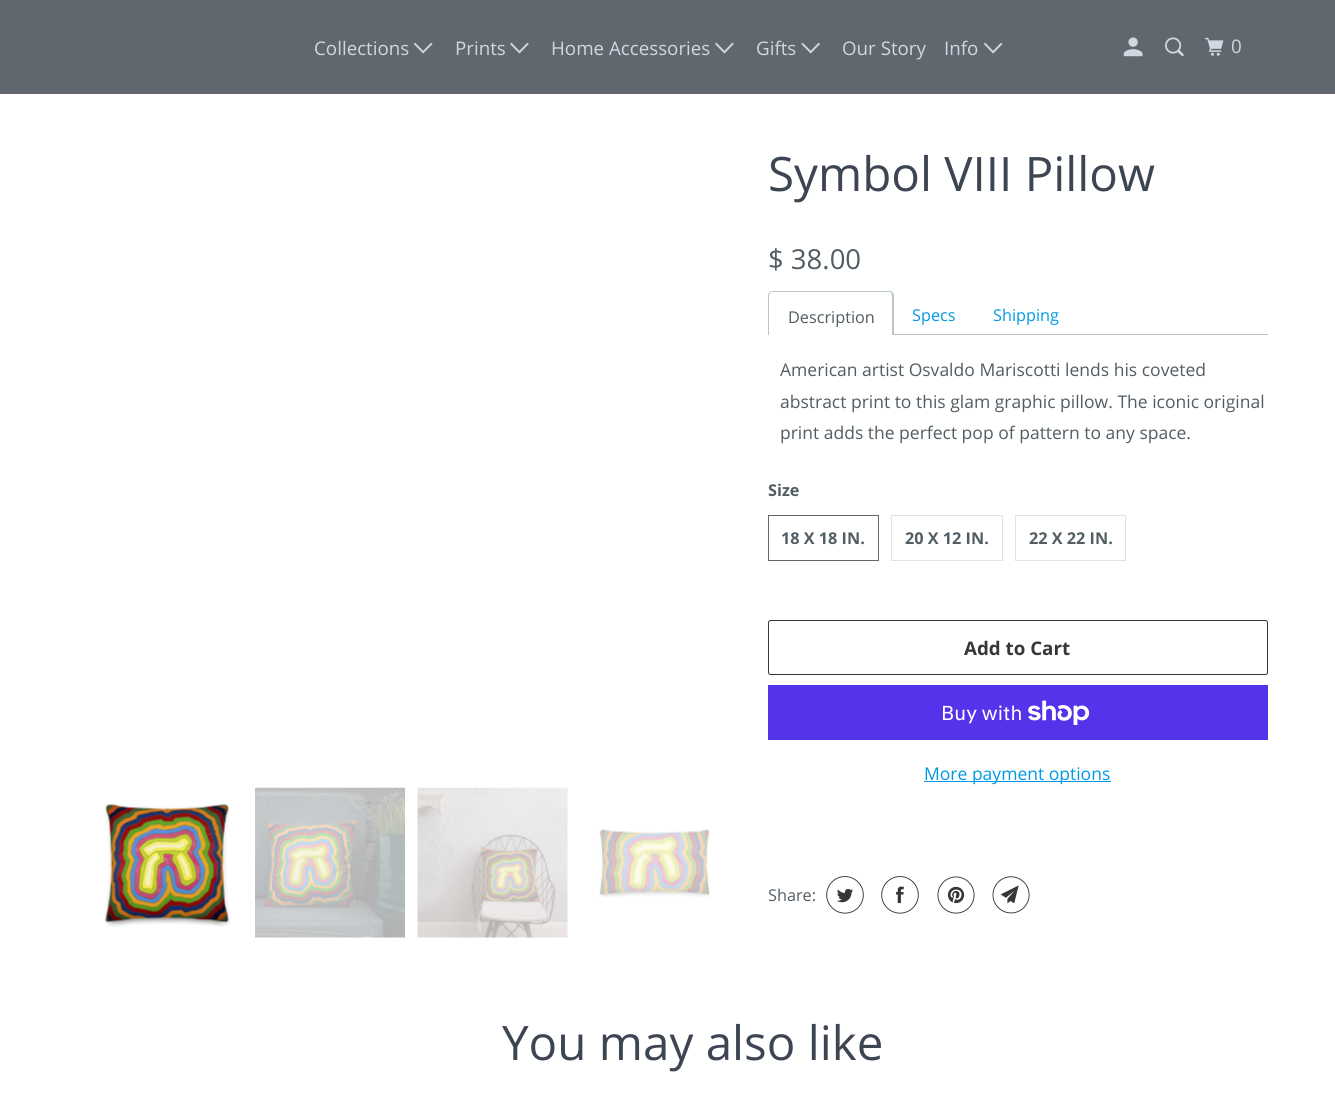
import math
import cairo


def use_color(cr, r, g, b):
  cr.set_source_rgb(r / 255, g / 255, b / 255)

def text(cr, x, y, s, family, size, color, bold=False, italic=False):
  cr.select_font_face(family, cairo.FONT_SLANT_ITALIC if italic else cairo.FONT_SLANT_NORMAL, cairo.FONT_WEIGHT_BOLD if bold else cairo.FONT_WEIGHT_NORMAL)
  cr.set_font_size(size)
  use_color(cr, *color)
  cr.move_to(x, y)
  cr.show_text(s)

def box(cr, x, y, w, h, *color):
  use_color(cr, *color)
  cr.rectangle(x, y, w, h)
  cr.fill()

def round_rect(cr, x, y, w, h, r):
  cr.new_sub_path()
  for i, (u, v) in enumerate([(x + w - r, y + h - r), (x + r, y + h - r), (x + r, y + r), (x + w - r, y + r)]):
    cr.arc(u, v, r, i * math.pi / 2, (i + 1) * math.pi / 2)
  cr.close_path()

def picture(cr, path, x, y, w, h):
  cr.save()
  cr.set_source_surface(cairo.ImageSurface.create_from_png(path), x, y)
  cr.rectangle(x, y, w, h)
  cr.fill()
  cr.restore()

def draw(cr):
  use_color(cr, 255, 255, 255)
  cr.paint()
  box(cr, 0, 0, 1335, 94, 96, 103, 110)
  picture(cr, "img_01.png", 414, 42, 19, 12)
  picture(cr, "img_02.png", 510, 42, 19, 12)
  picture(cr, "img_02.png", 715, 42, 19, 12)
  picture(cr, "img_03.png", 801, 42, 19, 12)
  picture(cr, "img_01.png", 984, 42, 19, 12)
  picture(cr, "img_04.png", 1123, 37, 20, 20)
  picture(cr, "img_05.png", 1165, 37, 19, 20)
  picture(cr, "img_06.png", 1205, 37, 19, 19)
  picture(cr, "img_07.png", 104, 804, 127, 123)
  picture(cr, "img_08.png", 255, 787, 150, 151)
  picture(cr, "img_09.png", 417, 787, 151, 151)
  picture(cr, "img_10.png", 599, 829, 111, 69)
  box(cr, 894, 334, 374, 1, 184, 198, 198)
  cr.set_fill_rule(cairo.FILL_RULE_EVEN_ODD)
  cr.new_path()
  cr.move_to(772, 291)
  cr.line_to(889, 291)
  cr.curve_to(892, 291, 894, 293, 894, 296)
  cr.line_to(894, 335)
  cr.line_to(768, 335)
  cr.line_to(768, 296)
  cr.curve_to(768, 293, 770, 291, 772, 291)
  cr.close_path()
  cr.move_to(772, 292)
  cr.line_to(889, 292)
  cr.curve_to(891, 292, 892, 294, 892, 296)
  cr.line_to(892, 335)
  cr.line_to(769, 335)
  cr.line_to(769, 296)
  cr.curve_to(769, 294, 770, 292, 772, 292)
  cr.close_path()
  cr.fill()
  cr.rectangle(768.5, 515.5, 110, 45)
  use_color(cr, 102, 102, 102)
  cr.set_line_width(1)
  cr.stroke()
  cr.rectangle(891.5, 515.5, 111, 45)
  use_color(cr, 226, 226, 226)
  cr.stroke()
  cr.rectangle(1015.5, 515.5, 110, 45)
  cr.stroke()
  round_rect(cr, 768.5, 620.5, 499, 54, 2)
  use_color(cr, 54, 54, 54)
  cr.stroke()
  box(cr, 768, 685, 500, 55, 84, 51, 235)
  picture(cr, "img_11.png", 1028, 700, 62, 25)
  box(cr, 924, 781, 187, 1, 0, 153, 229)
  picture(cr, "img_12.png", 826, 876, 38, 38)
  picture(cr, "img_13.png", 881, 876, 38, 38)
  picture(cr, "img_14.png", 937, 876, 38, 38)
  picture(cr, "img_15.png", 992, 876, 38, 38)
  text(cr, 314, 55, "Collections", "Open Sans", 18.75, (206, 216, 224))
  text(cr, 455, 55, "Prints", "Open Sans", 18.75, (206, 216, 224))
  text(cr, 551, 55, "Home Accessories", "Open Sans", 18.75, (206, 216, 224))
  text(cr, 756, 55, "Gifts", "Open Sans", 18.75, (206, 216, 224))
  text(cr, 842, 55, "Our Story", "Open Sans", 18.75, (206, 216, 224))
  text(cr, 944, 55, "Info", "Open Sans", 18.75, (206, 216, 224))
  text(cr, 1231, 53, "0", "Open Sans", 18.75, (206, 216, 224))
  text(cr, 768, 191, "Symbol VIII Pillow", "Open Sans", 47.5, (62, 69, 82))
  text(cr, 768, 269, "$ 38.00", "Open Sans", 27.5, (82, 93, 99))
  text(cr, 788, 323, "Description", "Open Sans", 16.25, (82, 93, 99))
  text(cr, 912, 321, "Specs", "Open Sans", 16.25, (0, 153, 229))
  text(cr, 993, 321, "Shipping", "Open Sans", 16.25, (0, 153, 229))
  text(cr, 780, 376, "American artist Osvaldo Mariscotti lends his coveted", "Open Sans", 17.5, (82, 93, 99))
  text(cr, 780, 408, "abstract print to this glam graphic pillow. The iconic original", "Open Sans", 17.5, (82, 93, 99))
  text(cr, 780, 439, "print adds the perfect pop of pattern to any space.", "Open Sans", 17.5, (82, 93, 99))
  text(cr, 768, 496, "Size", "Open Sans", 16.25, (82, 93, 99), bold=True)
  text(cr, 781, 544, "18 X 18 IN.", "Open Sans", 16.25, (82, 93, 99), bold=True)
  text(cr, 905, 544, "20 X 12 IN.", "Open Sans", 16.25, (82, 93, 99), bold=True)
  text(cr, 1029, 544, "22 X 22 IN.", "Open Sans", 16.25, (82, 93, 99), bold=True)
  text(cr, 964, 655, "Add to Cart", "Open Sans", 18.75, (54, 54, 54), bold=True)
  text(cr, 941, 720, "Buy with", "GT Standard", 20, (255, 255, 255))
  text(cr, 924, 780, "More payment options", "Open Sans", 17.5, (0, 153, 229))
  text(cr, 768, 901, "Share:", "Open Sans", 16.25, (82, 93, 99))
  text(cr, 502, 1060, "You may also like", "Open Sans", 47.5, (62, 69, 82))


surface = cairo.ImageSurface(cairo.FORMAT_RGB24, 1335, 1116)
cr = cairo.Context(surface)
options = cairo.FontOptions()
options.set_hint_metrics(cairo.HINT_METRICS_OFF)
options.set_hint_style(cairo.HINT_STYLE_NONE)
cr.set_font_options(options)
cr.set_miter_limit(4)
draw(cr)
surface.write_to_png("out.png")
